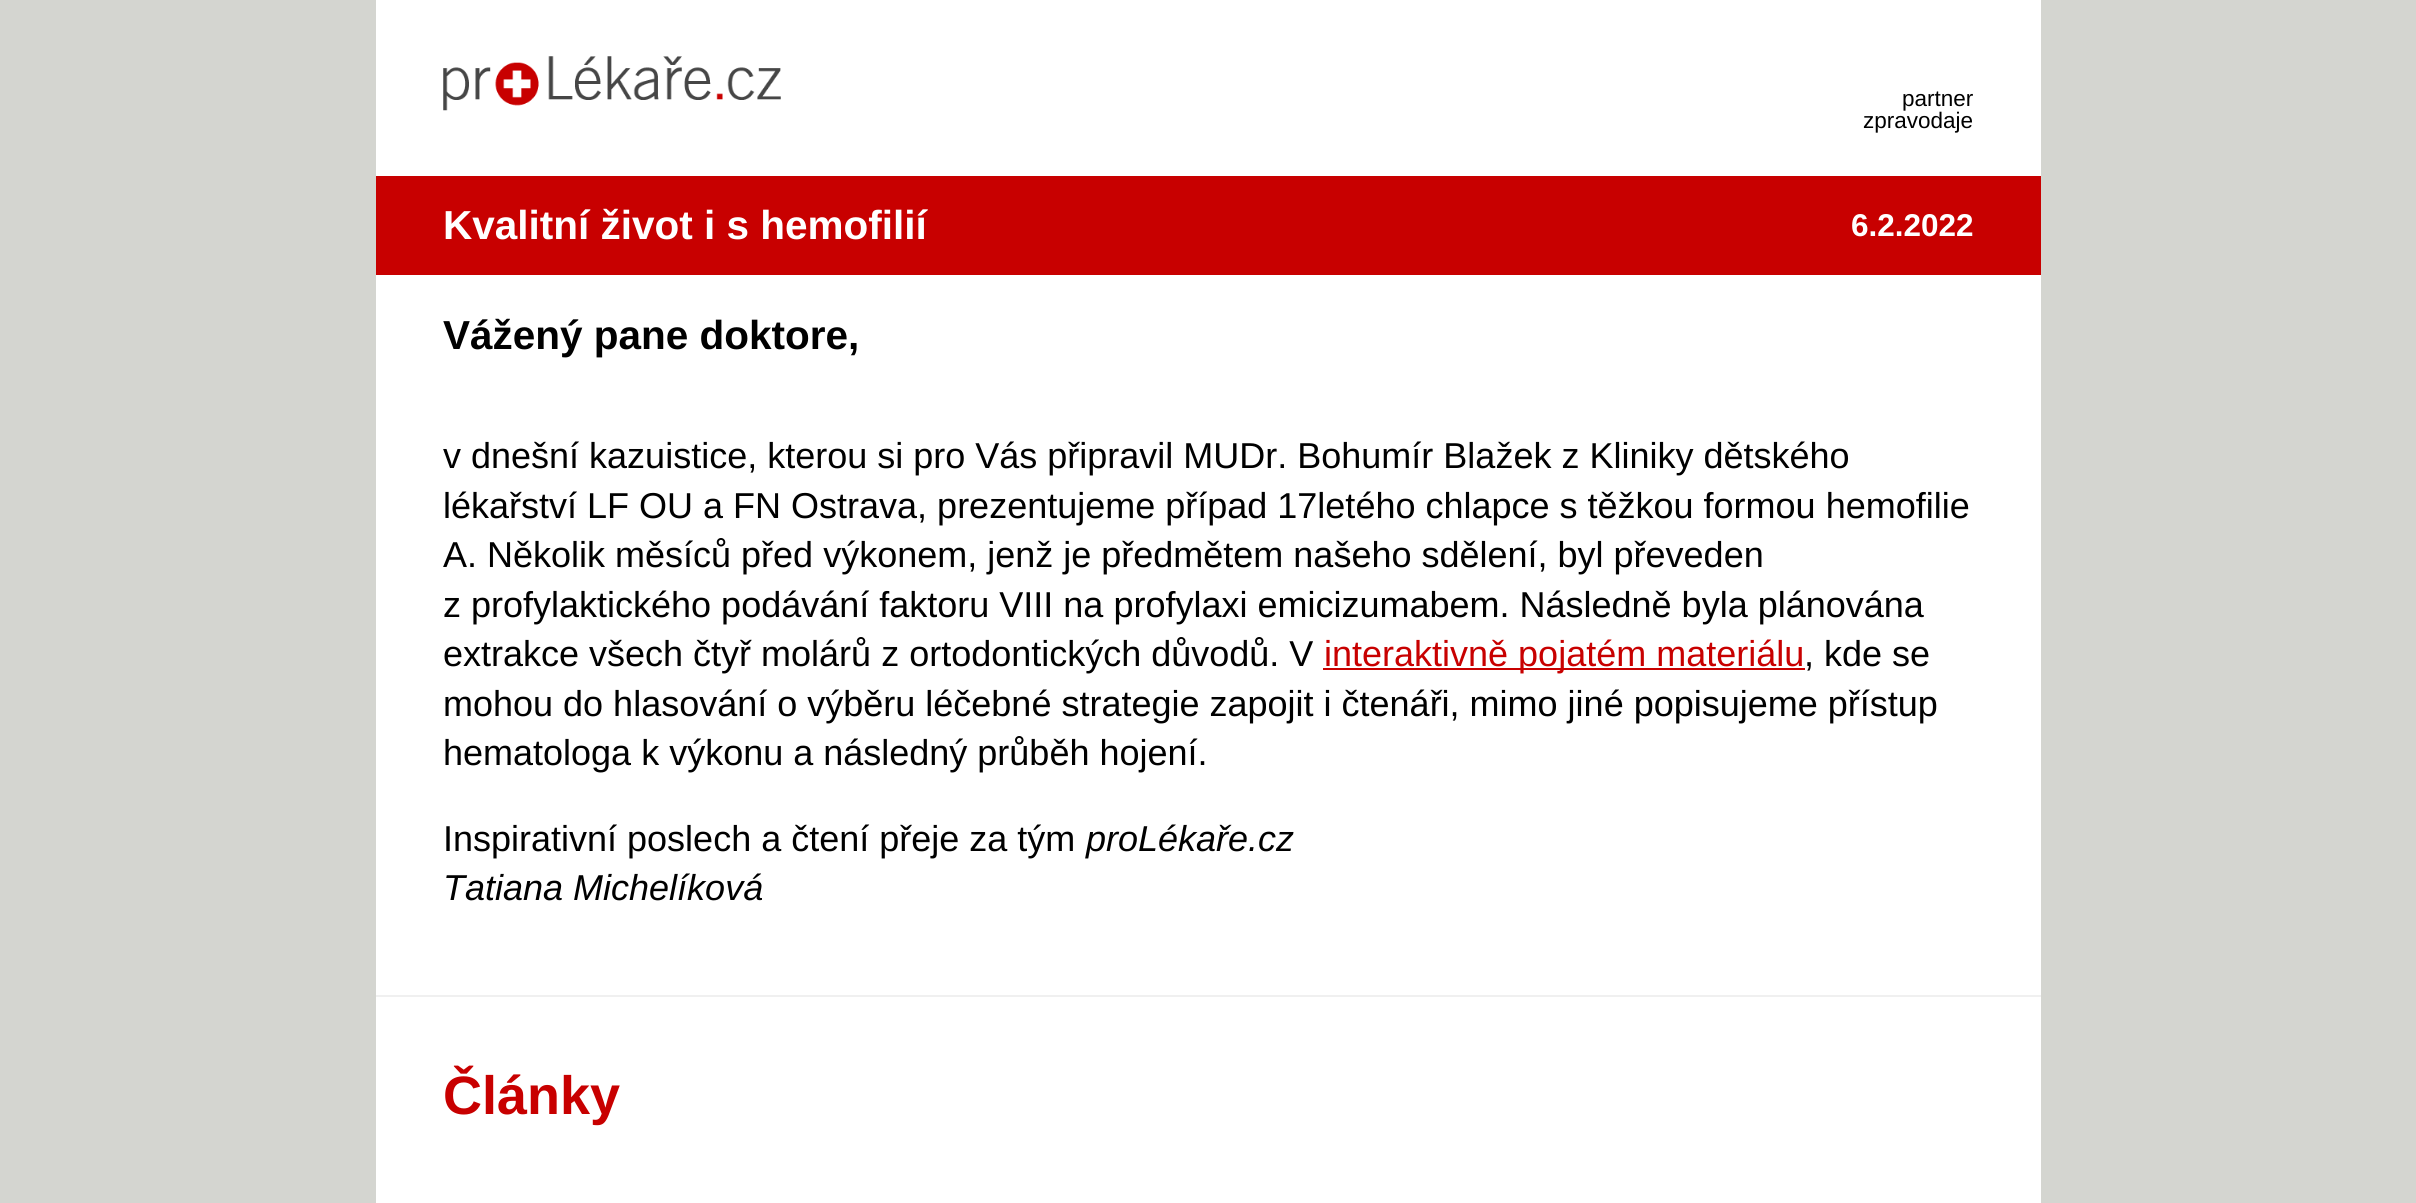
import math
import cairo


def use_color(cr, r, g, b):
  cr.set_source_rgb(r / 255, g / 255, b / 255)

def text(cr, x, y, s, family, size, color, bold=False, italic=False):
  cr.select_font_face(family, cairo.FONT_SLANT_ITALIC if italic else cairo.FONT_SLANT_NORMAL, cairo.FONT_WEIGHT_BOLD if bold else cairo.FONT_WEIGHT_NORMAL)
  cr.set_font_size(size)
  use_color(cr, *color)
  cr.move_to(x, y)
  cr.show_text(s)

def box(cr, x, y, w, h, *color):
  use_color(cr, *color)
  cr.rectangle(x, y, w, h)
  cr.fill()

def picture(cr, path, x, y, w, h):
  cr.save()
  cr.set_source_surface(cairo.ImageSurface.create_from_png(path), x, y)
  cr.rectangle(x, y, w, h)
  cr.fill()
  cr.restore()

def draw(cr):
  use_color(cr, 212, 213, 208)
  cr.paint()
  box(cr, 376, 0, 1665, 1203, 255, 255, 255)
  picture(cr, "img_01.png", 443, 56, 338, 55)
  box(cr, 376, 176, 1665, 99, 200, 0, 0)
  box(cr, 376, 995, 1665, 2, 240, 240, 240)
  box(cr, 1323, 668, 482, 2, 200, 0, 0)
  text(cr, 1902, 106, "partner", "Liberation Sans", 22.5, (0, 0, 0))
  text(cr, 1863, 128, "zpravodaje", "Liberation Sans", 22.5, (0, 0, 0))
  text(cr, 443, 239, "Kvalitní život i s hemofilií", "Liberation Sans", 40.5, (255, 255, 255), bold=True)
  text(cr, 1851, 236, "6.2.2022", "Liberation Sans", 31.5, (255, 255, 255), bold=True)
  text(cr, 443, 349, "Vážený pane doktore,", "Liberation Sans", 40.5, (0, 0, 0), bold=True)
  text(cr, 443, 468, "v dnešní kazuistice, kterou si pro Vás připravil MUDr. Bohumír Blažek z Kliniky dětského", "Liberation Sans", 36, (0, 0, 0))
  text(cr, 443, 518, "lékařství LF OU a FN Ostrava, prezentujeme případ 17letého chlapce s těžkou formou hemofilie", "Liberation Sans", 36, (0, 0, 0))
  text(cr, 443, 567, "A. Několik měsíců před výkonem, jenž je předmětem našeho sdělení, byl převeden", "Liberation Sans", 36, (0, 0, 0))
  text(cr, 443, 617, "z profylaktického podávání faktoru VIII na profylaxi emicizumabem. Následně byla plánována", "Liberation Sans", 36, (0, 0, 0))
  text(cr, 443, 666, "extrakce všech čtyř molárů z ortodontických důvodů. V", "Liberation Sans", 36, (0, 0, 0))
  text(cr, 1324, 666, "interaktivně pojatém materiálu", "Liberation Sans", 36, (200, 0, 0))
  text(cr, 1804, 666, ", kde se", "Liberation Sans", 36, (0, 0, 0))
  text(cr, 443, 716, "mohou do hlasování o výběru léčebné strategie zapojit i čtenáři, mimo jiné popisujeme přístup", "Liberation Sans", 36, (0, 0, 0))
  text(cr, 443, 765, "hematologa k výkonu a následný průběh hojení.", "Liberation Sans", 36, (0, 0, 0))
  text(cr, 443, 851, "Inspirativní poslech a čtení přeje za tým", "Liberation Sans", 36, (0, 0, 0))
  text(cr, 1086, 851, "proLékaře.cz", "Liberation Sans", 36, (0, 0, 0), italic=True)
  text(cr, 443, 900, "Tatiana Michelíková", "Liberation Sans", 36, (0, 0, 0), italic=True)
  text(cr, 443, 1114, "Články", "Liberation Sans", 54, (200, 0, 0), bold=True)


surface = cairo.ImageSurface(cairo.FORMAT_RGB24, 2416, 1203)
cr = cairo.Context(surface)
options = cairo.FontOptions()
options.set_hint_metrics(cairo.HINT_METRICS_OFF)
options.set_hint_style(cairo.HINT_STYLE_NONE)
cr.set_font_options(options)
cr.set_miter_limit(4)
draw(cr)
surface.write_to_png("out.png")
